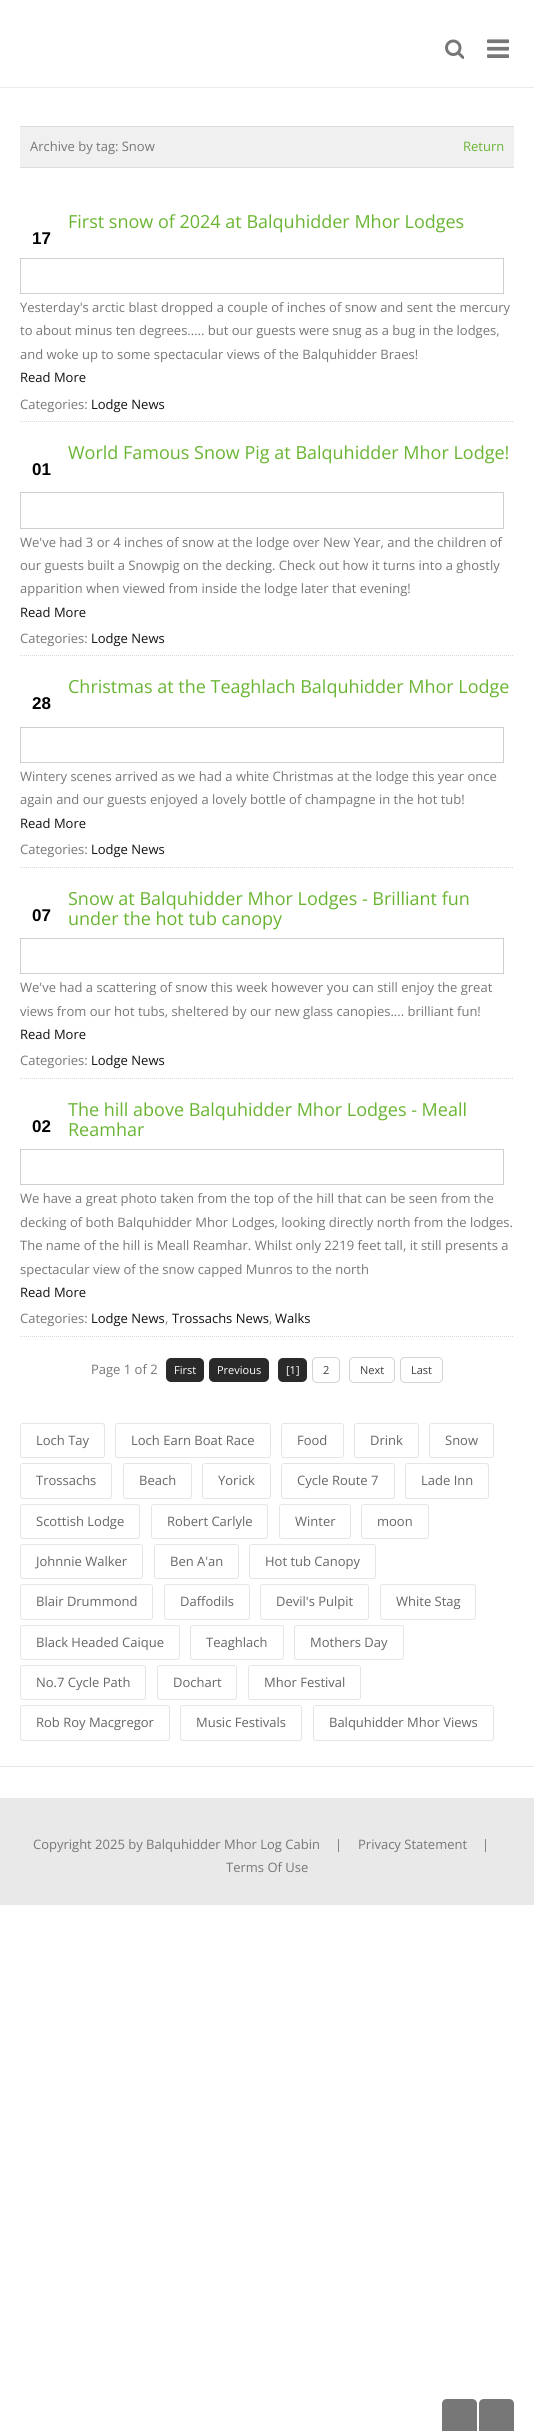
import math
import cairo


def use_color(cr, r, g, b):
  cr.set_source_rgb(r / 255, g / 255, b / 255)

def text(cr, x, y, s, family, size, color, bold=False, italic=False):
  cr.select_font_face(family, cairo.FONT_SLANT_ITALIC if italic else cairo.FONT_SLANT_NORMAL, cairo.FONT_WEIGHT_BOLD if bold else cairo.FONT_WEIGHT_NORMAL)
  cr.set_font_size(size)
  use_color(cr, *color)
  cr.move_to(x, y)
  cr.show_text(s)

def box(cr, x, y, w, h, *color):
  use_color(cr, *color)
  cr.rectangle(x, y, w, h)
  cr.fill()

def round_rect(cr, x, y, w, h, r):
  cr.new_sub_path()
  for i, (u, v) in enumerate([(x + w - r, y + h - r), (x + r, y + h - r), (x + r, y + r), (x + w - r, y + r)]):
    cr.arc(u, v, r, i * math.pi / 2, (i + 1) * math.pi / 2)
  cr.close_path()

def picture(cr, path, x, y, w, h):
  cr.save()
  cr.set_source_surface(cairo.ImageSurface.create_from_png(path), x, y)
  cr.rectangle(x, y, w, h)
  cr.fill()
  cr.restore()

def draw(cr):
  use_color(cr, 255, 255, 255)
  cr.paint()
  box(cr, 0, 87, 534, 1, 234, 234, 234)
  picture(cr, "img_01.png", 445, 39, 19, 20)
  picture(cr, "img_02.png", 487, 39, 22, 19)
  box(cr, 20, 127, 494, 40, 240, 240, 240)
  box(cr, 20, 126, 494, 1, 221, 221, 221)
  box(cr, 20, 167, 494, 1, 221, 221, 221)
  cr.rectangle(20.5, 258.5, 483, 35)
  use_color(cr, 207, 207, 207)
  cr.set_line_width(1)
  cr.stroke()
  cr.new_path()
  cr.move_to(20, 421.5)
  cr.line_to(514, 421.5)
  use_color(cr, 216, 216, 216)
  cr.set_dash([1, 1])
  cr.stroke()
  cr.rectangle(20.5, 492.5, 483, 36)
  use_color(cr, 207, 207, 207)
  cr.set_dash([])
  cr.stroke()
  cr.new_path()
  cr.move_to(20, 655.5)
  cr.line_to(514, 655.5)
  use_color(cr, 216, 216, 216)
  cr.set_dash([1, 1])
  cr.stroke()
  cr.rectangle(20.5, 727.5, 483, 35)
  use_color(cr, 207, 207, 207)
  cr.set_dash([])
  cr.stroke()
  cr.new_path()
  cr.move_to(20, 867.5)
  cr.line_to(514, 867.5)
  use_color(cr, 216, 216, 216)
  cr.set_dash([1, 1])
  cr.stroke()
  cr.rectangle(20.5, 938.5, 483, 35)
  use_color(cr, 207, 207, 207)
  cr.set_dash([])
  cr.stroke()
  cr.new_path()
  cr.move_to(20, 1078.5)
  cr.line_to(514, 1078.5)
  use_color(cr, 216, 216, 216)
  cr.set_dash([1, 1])
  cr.stroke()
  cr.rectangle(20.5, 1149.5, 483, 35)
  use_color(cr, 207, 207, 207)
  cr.set_dash([])
  cr.stroke()
  cr.new_path()
  cr.move_to(20, 1336.5)
  cr.line_to(514, 1336.5)
  use_color(cr, 216, 216, 216)
  cr.set_dash([1, 1])
  cr.stroke()
  use_color(cr, 42, 42, 42)
  round_rect(cr, 166, 1358, 38, 24, 5)
  cr.fill()
  round_rect(cr, 209, 1358, 60, 24, 5)
  cr.fill()
  round_rect(cr, 278, 1358, 29, 24, 5)
  cr.fill()
  round_rect(cr, 312.5, 1357.5, 27, 25, 4.5)
  use_color(cr, 212, 212, 212)
  cr.set_dash([])
  cr.stroke()
  round_rect(cr, 349.5, 1357.5, 45, 25, 4.5)
  cr.stroke()
  round_rect(cr, 400.5, 1357.5, 42, 25, 4.5)
  cr.stroke()
  round_rect(cr, 20.5, 1423.5, 84, 34, 2.5)
  use_color(cr, 229, 229, 229)
  cr.stroke()
  round_rect(cr, 115.5, 1423.5, 155, 34, 2.5)
  cr.stroke()
  round_rect(cr, 281.5, 1423.5, 62, 34, 2.5)
  cr.stroke()
  round_rect(cr, 354.5, 1423.5, 64, 34, 2.5)
  cr.stroke()
  round_rect(cr, 429.5, 1423.5, 64, 34, 2.5)
  cr.stroke()
  round_rect(cr, 20.5, 1463.5, 91, 35, 2.5)
  cr.stroke()
  round_rect(cr, 123.5, 1463.5, 68, 35, 2.5)
  cr.stroke()
  round_rect(cr, 202.5, 1463.5, 68, 35, 2.5)
  cr.stroke()
  round_rect(cr, 281.5, 1463.5, 113, 35, 2.5)
  cr.stroke()
  round_rect(cr, 405.5, 1463.5, 83, 35, 2.5)
  cr.stroke()
  round_rect(cr, 20.5, 1504.5, 119, 34, 2.5)
  cr.stroke()
  round_rect(cr, 151.5, 1504.5, 116, 34, 2.5)
  cr.stroke()
  round_rect(cr, 279.5, 1504.5, 71, 34, 2.5)
  cr.stroke()
  round_rect(cr, 361.5, 1504.5, 67, 34, 2.5)
  cr.stroke()
  round_rect(cr, 20.5, 1544.5, 122, 34, 2.5)
  cr.stroke()
  round_rect(cr, 154.5, 1544.5, 84, 34, 2.5)
  cr.stroke()
  round_rect(cr, 249.5, 1544.5, 126, 34, 2.5)
  cr.stroke()
  round_rect(cr, 20.5, 1584.5, 132, 35, 2.5)
  cr.stroke()
  round_rect(cr, 164.5, 1584.5, 85, 35, 2.5)
  cr.stroke()
  round_rect(cr, 260.5, 1584.5, 108, 35, 2.5)
  cr.stroke()
  round_rect(cr, 380.5, 1584.5, 95, 35, 2.5)
  cr.stroke()
  round_rect(cr, 20.5, 1625.5, 159, 34, 2.5)
  cr.stroke()
  round_rect(cr, 190.5, 1625.5, 93, 34, 2.5)
  cr.stroke()
  round_rect(cr, 294.5, 1625.5, 109, 34, 2.5)
  cr.stroke()
  round_rect(cr, 20.5, 1665.5, 125, 34, 2.5)
  cr.stroke()
  round_rect(cr, 157.5, 1665.5, 79, 34, 2.5)
  cr.stroke()
  round_rect(cr, 248.5, 1665.5, 112, 34, 2.5)
  cr.stroke()
  round_rect(cr, 20.5, 1705.5, 149, 35, 2.5)
  cr.stroke()
  round_rect(cr, 180.5, 1705.5, 121, 35, 2.5)
  cr.stroke()
  round_rect(cr, 313.5, 1705.5, 180, 35, 2.5)
  cr.stroke()
  box(cr, 0, 1766, 534, 1, 229, 229, 229)
  use_color(cr, 119, 119, 119)
  cr.new_path()
  cr.move_to(447, 2399)
  cr.line_to(472, 2399)
  cr.curve_to(475, 2399, 477, 2401, 477, 2404)
  cr.line_to(477, 2431)
  cr.line_to(442, 2431)
  cr.line_to(442, 2404)
  cr.curve_to(442, 2401, 444, 2399, 447, 2399)
  cr.close_path()
  cr.fill()
  cr.new_path()
  cr.move_to(484, 2399)
  cr.line_to(509, 2399)
  cr.curve_to(512, 2399, 514, 2401, 514, 2404)
  cr.line_to(514, 2431)
  cr.line_to(479, 2431)
  cr.line_to(479, 2404)
  cr.curve_to(479, 2401, 481, 2399, 484, 2399)
  cr.close_path()
  cr.fill()
  box(cr, 0, 1798, 534, 107, 233, 233, 233)
  text(cr, 30, 151, "Archive by tag: Snow", "Open Sans", 13, (119, 119, 119))
  text(cr, 463, 151, "Return", "Open Sans", 13, (105, 181, 50))
  text(cr, 68, 228, "First snow of 2024 at Balquhidder Mhor Lodges", "Open Sans", 18, (105, 181, 50))
  text(cr, 32, 244, "17", "Liberation Sans", 17, (0, 0, 0), bold=True)
  text(cr, 20, 312, "Yesterday's arctic blast dropped a couple of inches of snow and sent the mercury", "Open Sans", 13, (119, 119, 119))
  text(cr, 20, 335, "to about minus ten degrees..... but our guests were snug as a bug in the lodges,", "Open Sans", 13, (119, 119, 119))
  text(cr, 20, 359, "and woke up to some spectacular views of the Balquhidder Braes!", "Open Sans", 13, (119, 119, 119))
  text(cr, 20, 382, "Read More", "Open Sans", 13, (17, 17, 17))
  text(cr, 20, 409, "Categories:", "Open Sans", 13, (119, 119, 119))
  text(cr, 91, 409, "Lodge News", "Open Sans", 13, (17, 17, 17))
  text(cr, 68, 459, "World Famous Snow Pig at Balquhidder Mhor Lodge!", "Open Sans", 18, (105, 181, 50))
  text(cr, 32, 475, "01", "Liberation Sans", 17, (0, 0, 0), bold=True)
  text(cr, 20, 547, "We've had 3 or 4 inches of snow at the lodge over New Year, and the children of", "Open Sans", 13, (119, 119, 119))
  text(cr, 20, 570, "our guests built a Snowpig on the decking. Check out how it turns into a ghostly", "Open Sans", 13, (119, 119, 119))
  text(cr, 20, 593, "apparition when viewed from inside the lodge later that evening!", "Open Sans", 13, (119, 119, 119))
  text(cr, 20, 617, "Read More", "Open Sans", 13, (17, 17, 17))
  text(cr, 20, 643, "Categories:", "Open Sans", 13, (119, 119, 119))
  text(cr, 91, 643, "Lodge News", "Open Sans", 13, (17, 17, 17))
  text(cr, 68, 693, "Christmas at the Teaghlach Balquhidder Mhor Lodge", "Open Sans", 18, (105, 181, 50))
  text(cr, 32, 709, "28", "Liberation Sans", 17, (0, 0, 0), bold=True)
  text(cr, 20, 781, "Wintery scenes arrived as we had a white Christmas at the lodge this year once", "Open Sans", 13, (119, 119, 119))
  text(cr, 20, 804, "again and our guests enjoyed a lovely bottle of champagne in the hot tub!", "Open Sans", 13, (119, 119, 119))
  text(cr, 20, 828, "Read More", "Open Sans", 13, (17, 17, 17))
  text(cr, 20, 854, "Categories:", "Open Sans", 13, (119, 119, 119))
  text(cr, 91, 854, "Lodge News", "Open Sans", 13, (17, 17, 17))
  text(cr, 32, 921, "07", "Liberation Sans", 17, (0, 0, 0), bold=True)
  text(cr, 68, 905, "Snow at Balquhidder Mhor Lodges - Brilliant fun", "Open Sans", 18, (105, 181, 50))
  text(cr, 68, 925, "under the hot tub canopy", "Open Sans", 18, (105, 181, 50))
  text(cr, 20, 992, "We've had a scattering of snow this week however you can still enjoy the great", "Open Sans", 13, (119, 119, 119))
  text(cr, 20, 1016, "views from our hot tubs, sheltered by our new glass canopies.... brilliant fun!", "Open Sans", 13, (119, 119, 119))
  text(cr, 20, 1039, "Read More", "Open Sans", 13, (17, 17, 17))
  text(cr, 20, 1065, "Categories:", "Open Sans", 13, (119, 119, 119))
  text(cr, 91, 1065, "Lodge News", "Open Sans", 13, (17, 17, 17))
  text(cr, 32, 1132, "02", "Liberation Sans", 17, (0, 0, 0), bold=True)
  text(cr, 68, 1116, "The hill above Balquhidder Mhor Lodges - Meall", "Open Sans", 18, (105, 181, 50))
  text(cr, 68, 1136, "Reamhar", "Open Sans", 18, (105, 181, 50))
  text(cr, 20, 1203, "We have a great photo taken from the top of the hill that can be seen from the", "Open Sans", 13, (119, 119, 119))
  text(cr, 20, 1227, "decking of both Balquhidder Mhor Lodges, looking directly north from the lodges.", "Open Sans", 13, (119, 119, 119))
  text(cr, 20, 1250, "The name of the hill is Meall Reamhar. Whilst only 2219 feet tall, it still presents a", "Open Sans", 13, (119, 119, 119))
  text(cr, 20, 1274, "spectacular view of the snow capped Munros to the north", "Open Sans", 13, (119, 119, 119))
  text(cr, 20, 1297, "Read More", "Open Sans", 13, (17, 17, 17))
  text(cr, 20, 1323, "Categories:", "Open Sans", 13, (119, 119, 119))
  text(cr, 91, 1323, "Lodge News", "Open Sans", 13, (17, 17, 17))
  text(cr, 165, 1323, ",", "Open Sans", 13, (119, 119, 119))
  text(cr, 172, 1323, "Trossachs News", "Open Sans", 13, (17, 17, 17))
  text(cr, 269, 1323, ",", "Open Sans", 13, (119, 119, 119))
  text(cr, 275, 1323, "Walks", "Open Sans", 13, (17, 17, 17))
  text(cr, 91, 1374, "Page 1 of 2", "Open Sans", 13, (119, 119, 119))
  text(cr, 174, 1374, "First", "Open Sans", 11, (255, 255, 255))
  text(cr, 217, 1374, "Previous", "Open Sans", 11, (255, 255, 255))
  text(cr, 286, 1374, "[1]", "Open Sans", 11, (255, 255, 255))
  text(cr, 323, 1374, "2", "Open Sans", 11, (62, 62, 62))
  text(cr, 360, 1374, "Next", "Open Sans", 11, (62, 62, 62))
  text(cr, 411, 1374, "Last", "Open Sans", 11, (62, 62, 62))
  text(cr, 36, 1445, "Loch Tay", "Open Sans", 13, (102, 102, 102))
  text(cr, 131, 1445, "Loch Earn Boat Race", "Open Sans", 13, (102, 102, 102))
  text(cr, 297, 1445, "Food", "Open Sans", 13, (102, 102, 102))
  text(cr, 370, 1445, "Drink", "Open Sans", 13, (102, 102, 102))
  text(cr, 445, 1445, "Snow", "Open Sans", 13, (102, 102, 102))
  text(cr, 36, 1485, "Trossachs", "Open Sans", 13, (102, 102, 102))
  text(cr, 139, 1485, "Beach", "Open Sans", 13, (102, 102, 102))
  text(cr, 218, 1485, "Yorick", "Open Sans", 13, (102, 102, 102))
  text(cr, 297, 1485, "Cycle Route 7", "Open Sans", 13, (102, 102, 102))
  text(cr, 421, 1485, "Lade Inn", "Open Sans", 13, (102, 102, 102))
  text(cr, 36, 1526, "Scottish Lodge", "Open Sans", 13, (102, 102, 102))
  text(cr, 167, 1526, "Robert Carlyle", "Open Sans", 13, (102, 102, 102))
  text(cr, 295, 1526, "Winter", "Open Sans", 13, (102, 102, 102))
  text(cr, 377, 1526, "moon", "Open Sans", 13, (102, 102, 102))
  text(cr, 36, 1566, "Johnnie Walker", "Open Sans", 13, (102, 102, 102))
  text(cr, 170, 1566, "Ben A'an", "Open Sans", 13, (102, 102, 102))
  text(cr, 265, 1566, "Hot tub Canopy", "Open Sans", 13, (102, 102, 102))
  text(cr, 36, 1606, "Blair Drummond", "Open Sans", 13, (102, 102, 102))
  text(cr, 180, 1606, "Daffodils", "Open Sans", 13, (102, 102, 102))
  text(cr, 276, 1606, "Devil's Pulpit", "Open Sans", 13, (102, 102, 102))
  text(cr, 396, 1606, "White Stag", "Open Sans", 13, (102, 102, 102))
  text(cr, 36, 1647, "Black Headed Caique", "Open Sans", 13, (102, 102, 102))
  text(cr, 206, 1647, "Teaghlach", "Open Sans", 13, (102, 102, 102))
  text(cr, 310, 1647, "Mothers Day", "Open Sans", 13, (102, 102, 102))
  text(cr, 36, 1687, "No.7 Cycle Path", "Open Sans", 13, (102, 102, 102))
  text(cr, 173, 1687, "Dochart", "Open Sans", 13, (102, 102, 102))
  text(cr, 264, 1687, "Mhor Festival", "Open Sans", 13, (102, 102, 102))
  text(cr, 36, 1727, "Rob Roy Macgregor", "Open Sans", 13, (102, 102, 102))
  text(cr, 196, 1727, "Music Festivals", "Open Sans", 13, (102, 102, 102))
  text(cr, 329, 1727, "Balquhidder Mhor Views", "Open Sans", 13, (102, 102, 102))
  text(cr, 33, 1849, "Copyright 2025 by Balquhidder Mhor Log Cabin", "Open Sans", 13, (119, 119, 119))
  text(cr, 335, 1849, "|", "Open Sans", 13, (119, 119, 119))
  text(cr, 358, 1849, "Privacy Statement", "Open Sans", 13, (119, 119, 119))
  text(cr, 482, 1849, "|", "Open Sans", 13, (119, 119, 119))
  text(cr, 226, 1872, "Terms Of Use", "Open Sans", 13, (119, 119, 119))


surface = cairo.ImageSurface(cairo.FORMAT_RGB24, 534, 2431)
cr = cairo.Context(surface)
options = cairo.FontOptions()
options.set_hint_metrics(cairo.HINT_METRICS_OFF)
options.set_hint_style(cairo.HINT_STYLE_NONE)
cr.set_font_options(options)
cr.set_miter_limit(4)
draw(cr)
surface.write_to_png("out.png")
